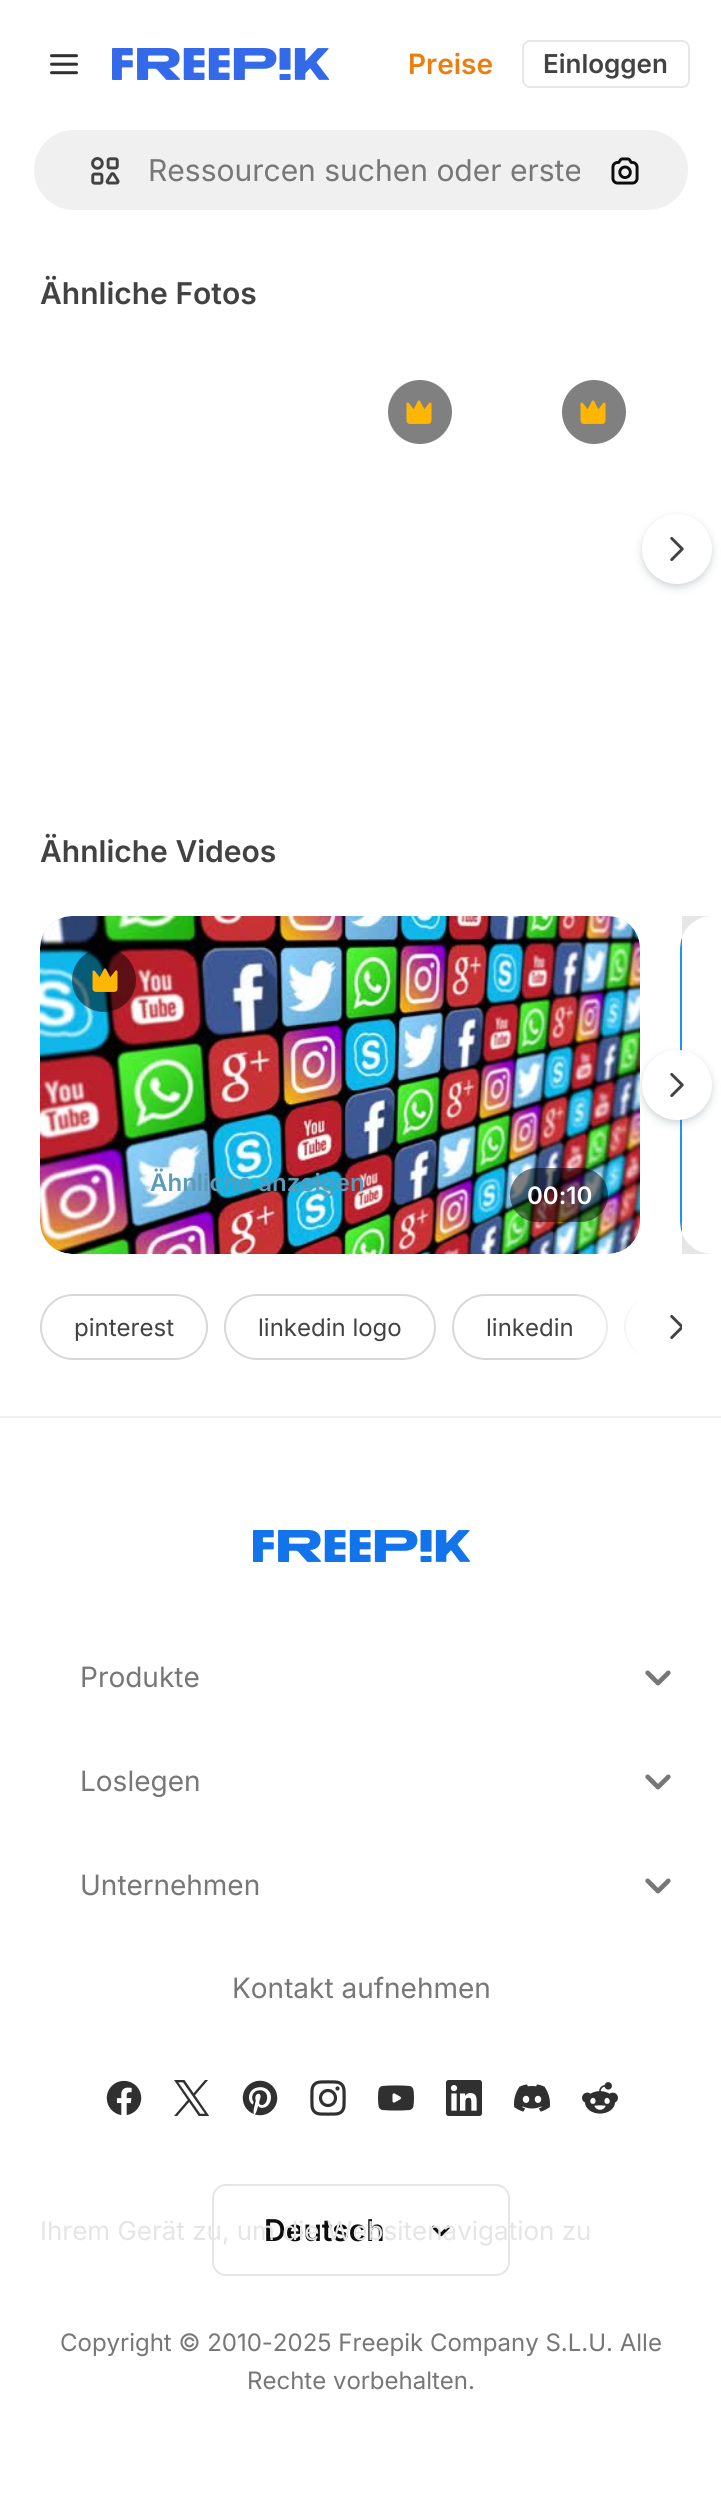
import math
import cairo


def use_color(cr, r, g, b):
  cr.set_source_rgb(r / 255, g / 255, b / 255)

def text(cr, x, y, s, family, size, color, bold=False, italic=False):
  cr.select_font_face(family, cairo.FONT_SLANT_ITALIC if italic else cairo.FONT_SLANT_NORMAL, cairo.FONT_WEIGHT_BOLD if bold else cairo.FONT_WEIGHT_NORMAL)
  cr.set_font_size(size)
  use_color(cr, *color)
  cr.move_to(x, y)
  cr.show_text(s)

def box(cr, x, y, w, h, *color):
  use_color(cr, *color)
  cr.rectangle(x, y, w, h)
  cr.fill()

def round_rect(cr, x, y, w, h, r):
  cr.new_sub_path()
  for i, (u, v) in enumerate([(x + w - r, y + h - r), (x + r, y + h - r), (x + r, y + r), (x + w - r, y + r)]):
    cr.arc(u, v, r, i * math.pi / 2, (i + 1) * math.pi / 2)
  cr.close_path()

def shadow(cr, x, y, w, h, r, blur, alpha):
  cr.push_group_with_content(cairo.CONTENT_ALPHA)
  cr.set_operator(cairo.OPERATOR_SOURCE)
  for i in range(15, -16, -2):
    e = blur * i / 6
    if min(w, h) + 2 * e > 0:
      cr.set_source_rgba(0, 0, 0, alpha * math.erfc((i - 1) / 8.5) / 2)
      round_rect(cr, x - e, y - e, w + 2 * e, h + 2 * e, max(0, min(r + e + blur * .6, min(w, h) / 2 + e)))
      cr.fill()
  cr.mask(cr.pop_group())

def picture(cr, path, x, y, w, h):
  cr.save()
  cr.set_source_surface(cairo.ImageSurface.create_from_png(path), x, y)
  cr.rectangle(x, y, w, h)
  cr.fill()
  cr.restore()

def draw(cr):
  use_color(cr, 255, 255, 255)
  cr.paint()
  picture(cr, "img_01.png", 50, 54, 28, 21)
  picture(cr, "img_02.png", 112, 48, 218, 32)
  round_rect(cr, 523, 41, 166, 46, 7)
  use_color(cr, 231, 231, 231)
  cr.stroke()
  use_color(cr, 240, 240, 240)
  round_rect(cr, 33, 129, 656, 82, 41)
  cr.fill_preserve()
  use_color(cr, 255, 255, 255)
  cr.stroke()
  picture(cr, "img_03.png", 91, 157, 29, 28)
  picture(cr, "img_04.png", 611, 157, 28, 28)
  use_color(cr, 128, 128, 128)
  cr.arc(420, 412, 32, 0, 2 * math.pi)
  cr.fill()
  picture(cr, "img_05.png", 406, 400, 26, 24)
  cr.arc(594, 412, 32, 0, 2 * math.pi)
  cr.fill()
  picture(cr, "img_05.png", 580, 400, 26, 24)
  use_color(cr, 55, 73, 87)
  shadow(cr, 642, 518, 70, 70, 35, 5, 0.15)
  shadow(cr, 642, 516, 70, 70, 35, 2, 0.1)
  use_color(cr, 255, 255, 255)
  cr.arc(677, 549, 35, 0, 2 * math.pi)
  cr.fill()
  picture(cr, "img_06.png", 670, 536, 14, 26)
  use_color(cr, 230, 230, 230)
  round_rect(cr, 40, 916, 600, 338, 32)
  cr.fill()
  picture(cr, "img_08.png", 40, 916, 600, 338)
  cr.new_path()
  cr.move_to(712, 916)
  cr.line_to(682, 916)
  cr.line_to(682, 1254)
  cr.line_to(712, 1254)
  cr.curve_to(694.5, 1254, 680, 1239.5, 680, 1222)
  cr.line_to(680, 948)
  cr.curve_to(680, 930.5, 694.5, 916, 712, 916)
  cr.close_path()
  cr.fill()
  picture(cr, "img_09.png", 680, 937, 2, 296)
  use_color(cr, 55, 73, 87)
  shadow(cr, 642, 1054, 70, 70, 35, 5, 0.15)
  shadow(cr, 642, 1052, 70, 70, 35, 2, 0.1)
  use_color(cr, 255, 255, 255)
  cr.arc(677, 1085, 35, 0, 2 * math.pi)
  cr.fill()
  picture(cr, "img_06.png", 670, 1072, 14, 26)
  cr.set_source_rgba(0, 0, 0, 0.5)
  cr.arc(104, 980, 32, 0, 2 * math.pi)
  cr.fill()
  picture(cr, "img_07.png", 92, 968, 26, 24)
  round_rect(cr, 510, 1168, 98, 54, 27)
  cr.fill()
  round_rect(cr, 41, 1295, 166, 64, 32)
  use_color(cr, 216, 216, 216)
  cr.stroke()
  round_rect(cr, 225, 1295, 210, 64, 32)
  cr.stroke()
  round_rect(cr, 453, 1295, 154, 64, 32)
  cr.stroke()
  cr.save()
  cr.rectangle(40, 1294, 642, 66)
  cr.clip()
  round_rect(cr, 625, 1295, 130, 64, 32)
  cr.stroke()
  cr.restore()
  box(cr, 642, 1294, 40, 66, 255, 255, 255)
  gradient = cairo.LinearGradient(642, 1327, 572, 1327)
  gradient.add_color_stop_rgba(0, 1, 1, 1, 1)
  gradient.add_color_stop_rgba(1, 1, 1, 1, 0)
  cr.set_source(gradient)
  cr.rectangle(577, 1294, 65, 66)
  cr.fill()
  picture(cr, "img_10.png", 670, 1314, 12, 26)
  box(cr, 0, 1416, 721, 2, 240, 240, 240)
  picture(cr, "img_11.png", 253, 1530, 218, 32)
  picture(cr, "img_12.png", 645, 1670, 26, 16)
  picture(cr, "img_12.png", 645, 1774, 26, 16)
  picture(cr, "img_12.png", 645, 1878, 26, 16)
  picture(cr, "img_13.png", 106, 2080, 36, 36)
  picture(cr, "img_14.png", 174, 2080, 36, 36)
  picture(cr, "img_15.png", 242, 2080, 36, 36)
  picture(cr, "img_16.png", 310, 2080, 36, 36)
  picture(cr, "img_17.png", 378, 2085, 36, 26)
  picture(cr, "img_18.png", 446, 2080, 36, 36)
  picture(cr, "img_19.png", 514, 2084, 36, 28)
  picture(cr, "img_20.png", 582, 2082, 36, 32)
  round_rect(cr, 213, 2185, 296, 90, 13)
  use_color(cr, 230, 230, 230)
  cr.stroke()
  picture(cr, "img_21.png", 432, 2225, 18, 12)
  text(cr, 408, 74, "Preise", "Inter SemiBold", 28, (234, 126, 17))
  text(cr, 543, 73, "Einloggen", "Inter SemiBold", 26, (66, 66, 66))
  cr.save()
  cr.rectangle(148, 150, 432, 38)
  cr.clip()
  text(cr, 148, 181, "Ressourcen suchen oder erste", "Inter", 30, (119, 119, 119))
  cr.restore()
  text(cr, 40, 304, "Ähnliche Fotos", "Inter SemiBold", 30, (66, 66, 66))
  text(cr, 40, 862, "Ähnliche Videos", "Inter SemiBold", 30, (66, 66, 66))
  text(cr, 150, 1191, "Ähnliche anzeigen", "Inter SemiBold", 24, (91, 155, 183))
  text(cr, 527, 1204, "00:10", "Inter SemiBold", 24, (255, 255, 255))
  text(cr, 74, 1336, "pinterest", "Inter", 24, (66, 66, 66))
  text(cr, 258, 1336, "linkedin logo", "Inter", 24, (66, 66, 66))
  text(cr, 486, 1336, "linkedin", "Inter", 24, (66, 66, 66))
  text(cr, 80, 1687, "Produkte", "Inter", 28, (119, 119, 119))
  text(cr, 80, 1791, "Loslegen", "Inter", 28, (119, 119, 119))
  text(cr, 80, 1895, "Unternehmen", "Inter", 28, (119, 119, 119))
  text(cr, 232, 1998, "Kontakt aufnehmen", "Inter", 28, (119, 119, 119))
  text(cr, 264, 2241, "Deutsch", "Inter SemiBold", 30, (13, 13, 13))
  text(cr, 60, 2351, "Copyright © 2010-2025 Freepik Company S.L.U. Alle", "Inter", 24, (119, 119, 119))
  text(cr, 247, 2389, "Rechte vorbehalten.", "Inter", 24, (119, 119, 119))
  text(cr, 40, 2240, "Ihrem Gerät zu, um die Websitenavigation zu", "Inter", 26, (229, 229, 229))


surface = cairo.ImageSurface(cairo.FORMAT_RGB24, 721, 2495)
cr = cairo.Context(surface)
options = cairo.FontOptions()
options.set_hint_metrics(cairo.HINT_METRICS_OFF)
options.set_hint_style(cairo.HINT_STYLE_NONE)
cr.set_font_options(options)
cr.set_miter_limit(4)
draw(cr)
surface.write_to_png("out.png")
